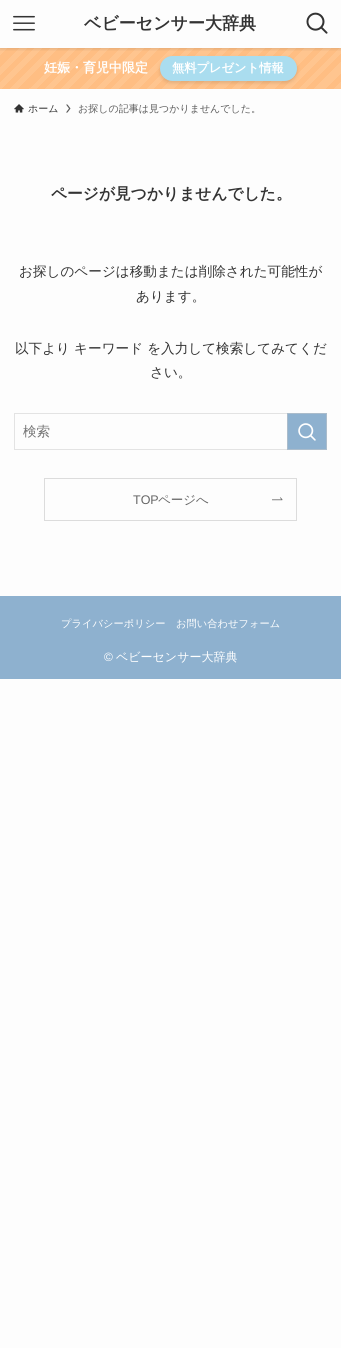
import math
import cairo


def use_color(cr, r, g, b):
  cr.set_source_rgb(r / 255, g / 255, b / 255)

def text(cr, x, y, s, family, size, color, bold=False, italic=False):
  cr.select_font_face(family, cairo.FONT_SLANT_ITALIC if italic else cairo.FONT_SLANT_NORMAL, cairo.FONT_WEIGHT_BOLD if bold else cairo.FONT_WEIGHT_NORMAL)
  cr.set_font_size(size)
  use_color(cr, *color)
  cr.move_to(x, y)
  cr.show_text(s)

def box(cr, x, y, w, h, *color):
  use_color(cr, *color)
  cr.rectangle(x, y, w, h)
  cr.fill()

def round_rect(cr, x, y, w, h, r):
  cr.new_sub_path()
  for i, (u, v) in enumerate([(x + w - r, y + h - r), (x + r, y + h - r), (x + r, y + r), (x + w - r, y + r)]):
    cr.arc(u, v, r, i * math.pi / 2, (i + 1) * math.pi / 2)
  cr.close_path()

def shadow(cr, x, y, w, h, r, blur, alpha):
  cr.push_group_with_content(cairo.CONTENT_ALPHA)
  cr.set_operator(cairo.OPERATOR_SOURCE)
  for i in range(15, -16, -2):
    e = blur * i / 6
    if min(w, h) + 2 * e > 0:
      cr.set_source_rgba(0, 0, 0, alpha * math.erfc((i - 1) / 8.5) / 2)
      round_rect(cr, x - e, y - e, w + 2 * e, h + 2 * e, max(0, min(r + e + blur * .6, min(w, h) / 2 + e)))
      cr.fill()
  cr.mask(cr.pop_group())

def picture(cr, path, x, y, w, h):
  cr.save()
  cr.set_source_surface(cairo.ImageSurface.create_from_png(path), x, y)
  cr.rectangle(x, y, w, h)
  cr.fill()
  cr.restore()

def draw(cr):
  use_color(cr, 253, 253, 253)
  cr.paint()
  gradient = cairo.LinearGradient(266, 164, 71, -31)
  gradient.add_color_stop_rgba(0, 1, 0.773, 0.561, 1)
  gradient.add_color_stop_rgba(0.02, 1, 0.773, 0.561, 1)
  gradient.add_color_stop_rgba(0.02, 1, 0.745, 0.514, 1)
  gradient.add_color_stop_rgba(0.04, 1, 0.745, 0.514, 1)
  gradient.add_color_stop_rgba(0.04, 1, 0.773, 0.561, 1)
  gradient.add_color_stop_rgba(0.07, 1, 0.773, 0.561, 1)
  gradient.add_color_stop_rgba(0.07, 1, 0.745, 0.514, 1)
  gradient.add_color_stop_rgba(0.09, 1, 0.745, 0.514, 1)
  gradient.add_color_stop_rgba(0.09, 1, 0.773, 0.561, 1)
  gradient.add_color_stop_rgba(0.11, 1, 0.773, 0.561, 1)
  gradient.add_color_stop_rgba(0.11, 1, 0.745, 0.514, 1)
  gradient.add_color_stop_rgba(0.13, 1, 0.745, 0.514, 1)
  gradient.add_color_stop_rgba(0.13, 1, 0.773, 0.561, 1)
  gradient.add_color_stop_rgba(0.15, 1, 0.773, 0.561, 1)
  gradient.add_color_stop_rgba(0.15, 1, 0.745, 0.514, 1)
  gradient.add_color_stop_rgba(0.17, 1, 0.745, 0.514, 1)
  gradient.add_color_stop_rgba(0.17, 1, 0.773, 0.561, 1)
  gradient.add_color_stop_rgba(0.2, 1, 0.773, 0.561, 1)
  gradient.add_color_stop_rgba(0.2, 1, 0.745, 0.514, 1)
  gradient.add_color_stop_rgba(0.22, 1, 0.745, 0.514, 1)
  gradient.add_color_stop_rgba(0.22, 1, 0.773, 0.561, 1)
  gradient.add_color_stop_rgba(0.24, 1, 0.773, 0.561, 1)
  gradient.add_color_stop_rgba(0.24, 1, 0.745, 0.514, 1)
  gradient.add_color_stop_rgba(0.26, 1, 0.745, 0.514, 1)
  gradient.add_color_stop_rgba(0.26, 1, 0.773, 0.561, 1)
  gradient.add_color_stop_rgba(0.28, 1, 0.773, 0.561, 1)
  gradient.add_color_stop_rgba(0.28, 1, 0.745, 0.514, 1)
  gradient.add_color_stop_rgba(0.3, 1, 0.745, 0.514, 1)
  gradient.add_color_stop_rgba(0.3, 1, 0.773, 0.561, 1)
  gradient.add_color_stop_rgba(0.33, 1, 0.773, 0.561, 1)
  gradient.add_color_stop_rgba(0.33, 1, 0.745, 0.514, 1)
  gradient.add_color_stop_rgba(0.35, 1, 0.745, 0.514, 1)
  gradient.add_color_stop_rgba(0.35, 1, 0.773, 0.561, 1)
  gradient.add_color_stop_rgba(0.37, 1, 0.773, 0.561, 1)
  gradient.add_color_stop_rgba(0.37, 1, 0.745, 0.514, 1)
  gradient.add_color_stop_rgba(0.39, 1, 0.745, 0.514, 1)
  gradient.add_color_stop_rgba(0.39, 1, 0.773, 0.561, 1)
  gradient.add_color_stop_rgba(0.41, 1, 0.773, 0.561, 1)
  gradient.add_color_stop_rgba(0.41, 1, 0.745, 0.514, 1)
  gradient.add_color_stop_rgba(0.43, 1, 0.745, 0.514, 1)
  gradient.add_color_stop_rgba(0.43, 1, 0.773, 0.561, 1)
  gradient.add_color_stop_rgba(0.46, 1, 0.773, 0.561, 1)
  gradient.add_color_stop_rgba(0.46, 1, 0.745, 0.514, 1)
  gradient.add_color_stop_rgba(0.48, 1, 0.745, 0.514, 1)
  gradient.add_color_stop_rgba(0.48, 1, 0.773, 0.561, 1)
  gradient.add_color_stop_rgba(0.5, 1, 0.773, 0.561, 1)
  gradient.add_color_stop_rgba(0.5, 1, 0.745, 0.514, 1)
  gradient.add_color_stop_rgba(0.52, 1, 0.745, 0.514, 1)
  gradient.add_color_stop_rgba(0.52, 1, 0.773, 0.561, 1)
  gradient.add_color_stop_rgba(0.54, 1, 0.773, 0.561, 1)
  gradient.add_color_stop_rgba(0.54, 1, 0.745, 0.514, 1)
  gradient.add_color_stop_rgba(0.57, 1, 0.745, 0.514, 1)
  gradient.add_color_stop_rgba(0.57, 1, 0.773, 0.561, 1)
  gradient.add_color_stop_rgba(0.59, 1, 0.773, 0.561, 1)
  gradient.add_color_stop_rgba(0.59, 1, 0.745, 0.514, 1)
  gradient.add_color_stop_rgba(0.61, 1, 0.745, 0.514, 1)
  gradient.add_color_stop_rgba(0.61, 1, 0.773, 0.561, 1)
  gradient.add_color_stop_rgba(0.63, 1, 0.773, 0.561, 1)
  gradient.add_color_stop_rgba(0.63, 1, 0.745, 0.514, 1)
  gradient.add_color_stop_rgba(0.65, 1, 0.745, 0.514, 1)
  gradient.add_color_stop_rgba(0.65, 1, 0.773, 0.561, 1)
  gradient.add_color_stop_rgba(0.67, 1, 0.773, 0.561, 1)
  gradient.add_color_stop_rgba(0.67, 1, 0.745, 0.514, 1)
  gradient.add_color_stop_rgba(0.7, 1, 0.745, 0.514, 1)
  gradient.add_color_stop_rgba(0.7, 1, 0.773, 0.561, 1)
  gradient.add_color_stop_rgba(0.72, 1, 0.773, 0.561, 1)
  gradient.add_color_stop_rgba(0.72, 1, 0.745, 0.514, 1)
  gradient.add_color_stop_rgba(0.74, 1, 0.745, 0.514, 1)
  gradient.add_color_stop_rgba(0.74, 1, 0.773, 0.561, 1)
  gradient.add_color_stop_rgba(0.76, 1, 0.773, 0.561, 1)
  gradient.add_color_stop_rgba(0.76, 1, 0.745, 0.514, 1)
  gradient.add_color_stop_rgba(0.78, 1, 0.745, 0.514, 1)
  gradient.add_color_stop_rgba(0.78, 1, 0.773, 0.561, 1)
  gradient.add_color_stop_rgba(0.8, 1, 0.773, 0.561, 1)
  gradient.add_color_stop_rgba(0.8, 1, 0.745, 0.514, 1)
  gradient.add_color_stop_rgba(0.83, 1, 0.745, 0.514, 1)
  gradient.add_color_stop_rgba(0.83, 1, 0.773, 0.561, 1)
  gradient.add_color_stop_rgba(0.85, 1, 0.773, 0.561, 1)
  gradient.add_color_stop_rgba(0.85, 1, 0.745, 0.514, 1)
  gradient.add_color_stop_rgba(0.87, 1, 0.745, 0.514, 1)
  gradient.add_color_stop_rgba(0.87, 1, 0.773, 0.561, 1)
  gradient.add_color_stop_rgba(0.89, 1, 0.773, 0.561, 1)
  gradient.add_color_stop_rgba(0.89, 1, 0.745, 0.514, 1)
  gradient.add_color_stop_rgba(0.91, 1, 0.745, 0.514, 1)
  gradient.add_color_stop_rgba(0.91, 1, 0.773, 0.561, 1)
  gradient.add_color_stop_rgba(0.93, 1, 0.773, 0.561, 1)
  gradient.add_color_stop_rgba(0.93, 1, 0.745, 0.514, 1)
  gradient.add_color_stop_rgba(0.96, 1, 0.745, 0.514, 1)
  gradient.add_color_stop_rgba(0.96, 1, 0.773, 0.561, 1)
  gradient.add_color_stop_rgba(0.98, 1, 0.773, 0.561, 1)
  gradient.add_color_stop_rgba(0.98, 1, 0.745, 0.514, 1)
  gradient.add_color_stop_rgba(1, 1, 0.745, 0.514, 1)
  cr.set_source(gradient)
  cr.rectangle(0, 48, 341, 41)
  cr.fill()
  cr.save()
  cr.rectangle(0, 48, 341, 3)
  cr.clip()
  use_color(cr, 0, 0, 0)
  shadow(cr, 0, 1, 341, 48, 0, 2, 0.12)
  cr.restore()
  picture(cr, "img_01.png", 13, 15, 22, 16)
  picture(cr, "img_02.png", 306, 12, 22, 22)
  use_color(cr, 0, 0, 0)
  shadow(cr, 160, 58, 137, 25, 12.5, 2, 0.12)
  use_color(cr, 170, 221, 239)
  round_rect(cr, 160, 56, 137, 25, 12.5)
  cr.fill()
  picture(cr, "img_03.png", 14, 104, 10, 9)
  use_color(cr, 91, 91, 91)
  cr.new_path()
  cr.move_to(67.5, 104.5)
  cr.line_to(66, 104.5)
  cr.line_to(69, 108.5)
  cr.line_to(66, 112.5)
  cr.line_to(67.5, 112.5)
  cr.line_to(70.5, 108.5)
  cr.close_path()
  cr.fill()
  cr.rectangle(14.5, 413.5, 312, 36)
  use_color(cr, 227, 227, 227)
  cr.set_line_width(1)
  cr.stroke()
  use_color(cr, 142, 177, 207)
  cr.rectangle(287.5, 413.5, 39, 36)
  cr.fill_preserve()
  use_color(cr, 171, 188, 203)
  cr.stroke()
  picture(cr, "img_04.png", 298, 423, 18, 18)
  cr.rectangle(44.5, 478.5, 252, 42)
  use_color(cr, 220, 220, 220)
  cr.stroke()
  picture(cr, "img_05.png", 272, 497, 11, 4)
  box(cr, 0, 596, 341, 83, 142, 177, 207)
  text(cr, 84, 29, "ベビーセンサー大辞典", "WenQuanYi Zen Hei", 17, (51, 51, 51), bold=True)
  text(cr, 44, 72, "妊娠・育児中限定", "WenQuanYi Zen Hei", 13, (255, 255, 255), bold=True)
  text(cr, 172, 72, "無料プレゼント情報", "WenQuanYi Zen Hei", 12.25, (255, 255, 255), bold=True)
  text(cr, 28, 112, "ホーム", "WenQuanYi Zen Hei Medium", 10, (51, 51, 51))
  text(cr, 78, 112, "お探しの記事は見つかりませんでした。", "WenQuanYi Zen Hei Medium", 10, (91, 91, 91))
  text(cr, 51, 199, "ページが見つかりませんでした。", "WenQuanYi Zen Hei", 15.75, (51, 51, 51), bold=True)
  text(cr, 19, 276, "お探しのページは移動または削除された可能性が", "WenQuanYi Zen Hei Medium", 13.6, (51, 51, 51))
  text(cr, 136, 301, "あります。", "WenQuanYi Zen Hei Medium", 13.6, (51, 51, 51))
  text(cr, 15, 353, "以下より キーワード を入力して検索してみてくだ", "WenQuanYi Zen Hei Medium", 13.6, (51, 51, 51))
  text(cr, 150, 377, "さい。", "WenQuanYi Zen Hei Medium", 13.6, (51, 51, 51))
  text(cr, 23, 436, "検索", "WenQuanYi Zen Hei Medium", 13.6, (117, 117, 117))
  text(cr, 133, 504, "TOP", "Liberation Sans", 12.5, (102, 102, 102))
  text(cr, 158, 504, "ページへ", "WenQuanYi Zen Hei Medium", 12.5, (102, 102, 102))
  text(cr, 61, 627, "プライバシーポリシー", "WenQuanYi Zen Hei Medium", 10.25, (255, 255, 255))
  text(cr, 176, 627, "お問い合わせフォーム", "WenQuanYi Zen Hei Medium", 10.25, (255, 255, 255))
  text(cr, 104, 661, "©", "Liberation Sans", 12, (255, 255, 255))
  text(cr, 116, 661, "ベビーセンサー大辞典", "WenQuanYi Zen Hei Medium", 12, (255, 255, 255))


surface = cairo.ImageSurface(cairo.FORMAT_RGB24, 341, 1348)
cr = cairo.Context(surface)
options = cairo.FontOptions()
options.set_hint_metrics(cairo.HINT_METRICS_OFF)
options.set_hint_style(cairo.HINT_STYLE_NONE)
cr.set_font_options(options)
cr.set_miter_limit(4)
draw(cr)
surface.write_to_png("out.png")
